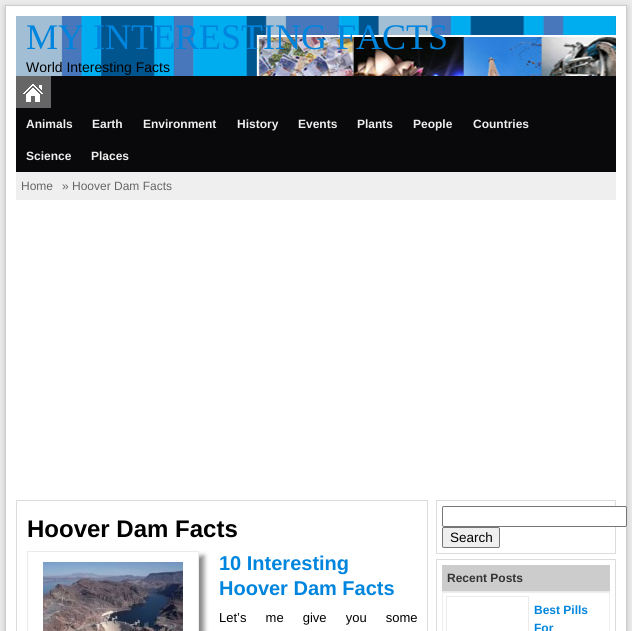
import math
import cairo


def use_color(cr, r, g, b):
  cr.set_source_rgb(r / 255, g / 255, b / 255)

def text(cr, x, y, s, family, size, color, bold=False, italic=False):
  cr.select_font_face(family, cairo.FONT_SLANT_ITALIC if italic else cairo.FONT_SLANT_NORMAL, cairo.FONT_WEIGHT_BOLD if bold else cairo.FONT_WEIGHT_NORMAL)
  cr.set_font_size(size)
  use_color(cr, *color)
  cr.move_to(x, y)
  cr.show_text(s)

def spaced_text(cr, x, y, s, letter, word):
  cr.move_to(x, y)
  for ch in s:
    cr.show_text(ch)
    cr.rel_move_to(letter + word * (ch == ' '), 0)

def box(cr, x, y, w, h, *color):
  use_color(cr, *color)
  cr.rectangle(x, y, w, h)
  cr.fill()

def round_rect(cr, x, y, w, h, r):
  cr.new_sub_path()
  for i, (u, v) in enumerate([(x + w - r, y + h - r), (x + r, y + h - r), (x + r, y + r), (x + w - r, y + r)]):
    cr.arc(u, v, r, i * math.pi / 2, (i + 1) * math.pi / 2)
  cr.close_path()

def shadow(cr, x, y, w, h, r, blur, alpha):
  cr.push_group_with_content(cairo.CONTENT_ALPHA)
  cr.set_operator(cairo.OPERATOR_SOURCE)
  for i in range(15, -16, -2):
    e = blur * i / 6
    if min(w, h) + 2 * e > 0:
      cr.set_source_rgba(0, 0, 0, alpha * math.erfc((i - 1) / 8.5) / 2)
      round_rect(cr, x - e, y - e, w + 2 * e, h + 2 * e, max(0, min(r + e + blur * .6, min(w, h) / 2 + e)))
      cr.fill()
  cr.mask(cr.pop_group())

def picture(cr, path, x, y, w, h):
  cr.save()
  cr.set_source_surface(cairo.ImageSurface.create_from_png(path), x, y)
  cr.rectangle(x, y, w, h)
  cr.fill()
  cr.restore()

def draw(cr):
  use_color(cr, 235, 235, 235)
  cr.paint()
  use_color(cr, 100, 100, 100)
  shadow(cr, 5, 7, 622, 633, 0, 3, 0.3)
  use_color(cr, 255, 255, 255)
  cr.rectangle(5.5, 5.5, 621, 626)
  cr.fill_preserve()
  use_color(cr, 204, 204, 204)
  cr.set_line_width(1)
  cr.stroke()
  picture(cr, "img_01.png", 16, 16, 600, 60)
  box(cr, 16, 76, 600, 96, 9, 8, 10)
  box(cr, 16, 76, 35, 32, 102, 102, 102)
  picture(cr, "img_02.png", 23, 84, 20, 18)
  box(cr, 16, 172, 600, 28, 239, 239, 239)
  cr.rectangle(16.5, 500.5, 411, 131)
  use_color(cr, 220, 220, 220)
  cr.stroke()
  cr.save()
  cr.rectangle(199, 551, 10, 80)
  cr.clip()
  use_color(cr, 136, 136, 136)
  shadow(cr, 32, 556, 172, 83, 0, 2.5, 1)
  cr.restore()
  cr.rectangle(27.5, 551.5, 171, 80)
  use_color(cr, 235, 235, 235)
  cr.stroke()
  picture(cr, "img_03.png", 43, 562, 140, 69)
  cr.rectangle(436.5, 500.5, 179, 53)
  use_color(cr, 220, 220, 220)
  cr.stroke()
  use_color(cr, 255, 255, 255)
  round_rect(cr, 442.5, 506.5, 184, 20, 1.5)
  cr.fill_preserve()
  use_color(cr, 118, 118, 118)
  cr.stroke()
  use_color(cr, 239, 239, 239)
  round_rect(cr, 442.5, 527.5, 57, 20, 1.5)
  cr.fill_preserve()
  use_color(cr, 118, 118, 118)
  cr.stroke()
  cr.rectangle(436.5, 559.5, 179, 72)
  use_color(cr, 220, 220, 220)
  cr.stroke()
  box(cr, 442, 565, 168, 26, 204, 204, 204)
  box(cr, 442, 591, 168, 1, 232, 232, 232)
  cr.rectangle(442.5, 592.5, 167, 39)
  use_color(cr, 238, 238, 238)
  cr.stroke()
  cr.rectangle(446.5, 596.5, 82, 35)
  use_color(cr, 235, 235, 235)
  cr.stroke()
  text(cr, 26, 49, "MY INTERESTING FACTS", "Liberation Serif", 36, (0, 133, 222))
  text(cr, 26, 72, "World Interesting Facts", "Liberation Sans", 14, (0, 0, 0))
  text(cr, 26, 128, "Animals", "Liberation Sans", 12, (239, 239, 239), bold=True)
  text(cr, 92, 128, "Earth", "Liberation Sans", 12, (239, 239, 239), bold=True)
  text(cr, 143, 128, "Environment", "Liberation Sans", 12, (239, 239, 239), bold=True)
  text(cr, 237, 128, "History", "Liberation Sans", 12, (239, 239, 239), bold=True)
  text(cr, 298, 128, "Events", "Liberation Sans", 12, (239, 239, 239), bold=True)
  text(cr, 357, 128, "Plants", "Liberation Sans", 12, (239, 239, 239), bold=True)
  text(cr, 413, 128, "People", "Liberation Sans", 12, (239, 239, 239), bold=True)
  text(cr, 473, 128, "Countries", "Liberation Sans", 12, (239, 239, 239), bold=True)
  text(cr, 26, 160, "Science", "Liberation Sans", 12, (239, 239, 239), bold=True)
  text(cr, 91, 160, "Places", "Liberation Sans", 12, (239, 239, 239), bold=True)
  text(cr, 21, 190, "Home", "Liberation Sans", 12, (102, 102, 102))
  text(cr, 62, 190, "» Hoover Dam Facts", "Liberation Sans", 12, (102, 102, 102))
  text(cr, 27, 537, "Hoover Dam Facts", "Liberation Sans", 24, (0, 0, 0), bold=True)
  text(cr, 219, 570, "10 Interesting", "Liberation Sans", 20, (0, 133, 222), bold=True)
  text(cr, 219, 595, "Hoover Dam Facts", "Liberation Sans", 20, (0, 133, 222), bold=True)
  cr.select_font_face("Liberation Sans")
  cr.set_font_size(13)
  use_color(cr, 0, 0, 0)
  spaced_text(cr, 219, 622, "Let’s me give you some", 0, 15.5)
  text(cr, 450, 542, "Search", "Liberation Sans", 13.5, (0, 0, 0))
  text(cr, 447, 582, "Recent Posts", "Liberation Sans", 12, (51, 51, 51), bold=True)
  text(cr, 534, 614, "Best Pills", "Liberation Sans", 12, (0, 133, 222), bold=True)
  text(cr, 534, 632, "For", "Liberation Sans", 12, (0, 133, 222), bold=True)


surface = cairo.ImageSurface(cairo.FORMAT_RGB24, 632, 631)
cr = cairo.Context(surface)
options = cairo.FontOptions()
options.set_hint_metrics(cairo.HINT_METRICS_OFF)
options.set_hint_style(cairo.HINT_STYLE_NONE)
cr.set_font_options(options)
cr.set_miter_limit(4)
draw(cr)
surface.write_to_png("out.png")
